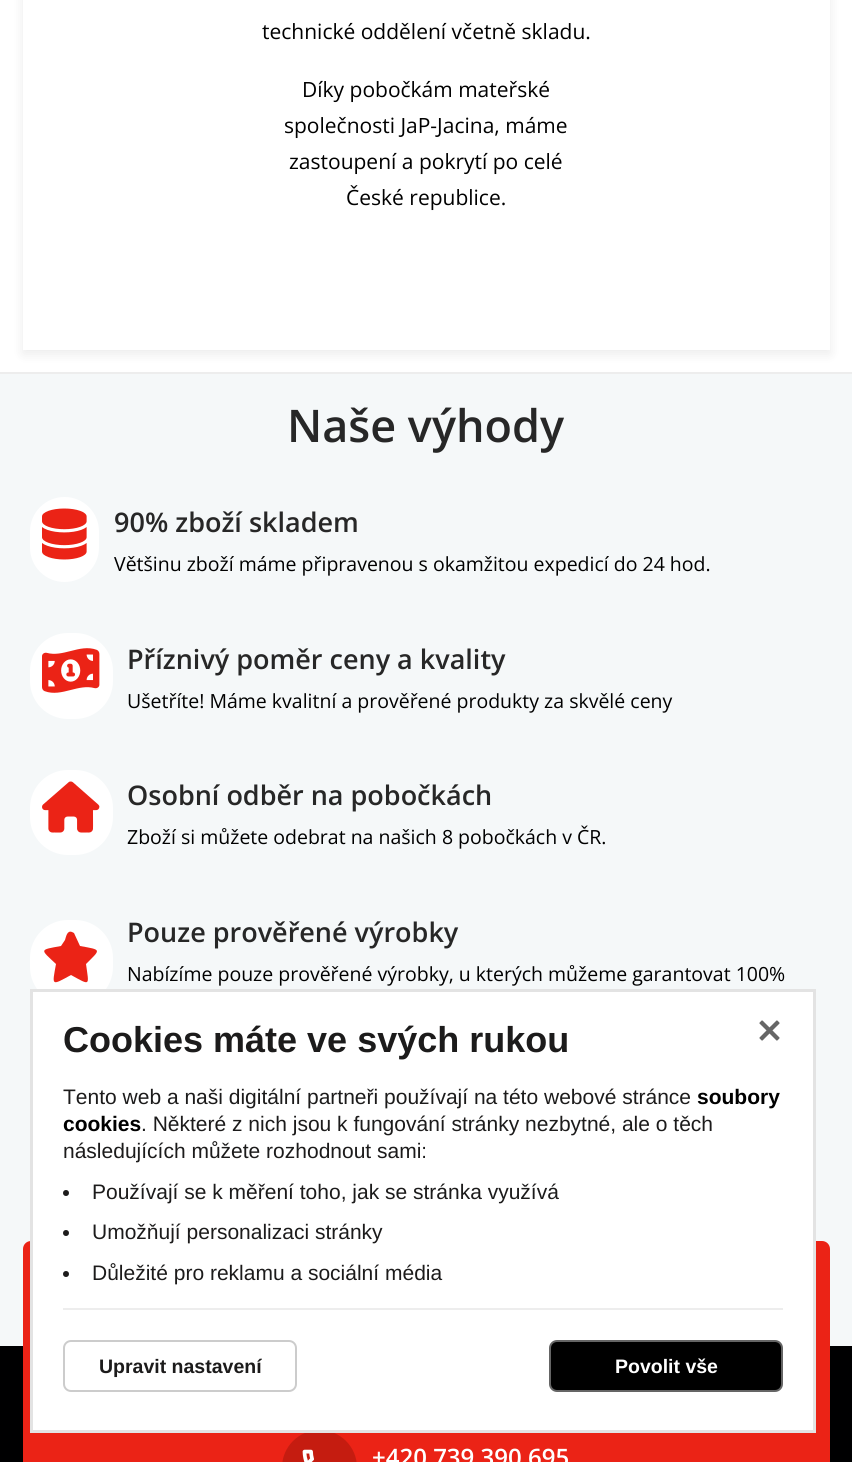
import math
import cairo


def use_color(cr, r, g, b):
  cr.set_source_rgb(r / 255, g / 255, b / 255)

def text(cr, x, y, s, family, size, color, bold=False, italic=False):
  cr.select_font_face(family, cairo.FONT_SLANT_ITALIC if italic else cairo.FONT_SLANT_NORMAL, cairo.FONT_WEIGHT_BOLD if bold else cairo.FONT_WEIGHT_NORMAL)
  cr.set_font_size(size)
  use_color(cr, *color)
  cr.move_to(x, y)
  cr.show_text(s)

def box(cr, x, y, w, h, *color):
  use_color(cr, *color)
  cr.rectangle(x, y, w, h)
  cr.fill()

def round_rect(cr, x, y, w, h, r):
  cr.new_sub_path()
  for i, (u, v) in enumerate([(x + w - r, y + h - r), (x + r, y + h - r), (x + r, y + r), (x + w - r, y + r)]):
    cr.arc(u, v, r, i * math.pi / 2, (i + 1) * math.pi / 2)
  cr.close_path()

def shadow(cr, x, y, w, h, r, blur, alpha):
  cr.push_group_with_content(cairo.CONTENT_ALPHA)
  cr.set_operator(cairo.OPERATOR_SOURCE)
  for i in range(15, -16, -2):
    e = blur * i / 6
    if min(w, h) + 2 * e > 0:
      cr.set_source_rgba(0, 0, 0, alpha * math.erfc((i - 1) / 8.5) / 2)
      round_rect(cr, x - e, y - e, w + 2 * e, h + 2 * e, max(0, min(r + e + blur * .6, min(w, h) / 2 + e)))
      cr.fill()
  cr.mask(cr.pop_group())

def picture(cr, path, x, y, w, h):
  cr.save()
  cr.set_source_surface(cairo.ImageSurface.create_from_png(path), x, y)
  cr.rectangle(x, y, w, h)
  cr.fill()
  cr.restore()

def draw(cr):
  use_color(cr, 245, 248, 249)
  cr.paint()
  box(cr, 0, 0, 852, 372, 255, 255, 255)
  cr.save()
  cr.set_fill_rule(cairo.FILL_RULE_EVEN_ODD)
  cr.new_path()
  cr.move_to(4, 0)
  cr.line_to(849, 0)
  cr.line_to(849, 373)
  cr.line_to(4, 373)
  cr.close_path()
  cr.move_to(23, -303)
  cr.line_to(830, -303)
  cr.line_to(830, 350)
  cr.line_to(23, 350)
  cr.close_path()
  cr.clip()
  use_color(cr, 0, 0, 0)
  shadow(cr, 23, -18, 807, 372, 0, 6, 0.08)
  cr.restore()
  box(cr, 0, 372, 852, 2, 237, 237, 237)
  use_color(cr, 255, 255, 255)
  round_rect(cr, 30, 497, 69, 85, 34.5)
  cr.fill()
  picture(cr, "img_01.png", 42, 508, 45, 52)
  round_rect(cr, 30, 633, 83, 86, 38)
  cr.fill()
  picture(cr, "img_02.png", 42, 648, 58, 45)
  round_rect(cr, 30, 770, 83, 85, 38)
  cr.fill()
  picture(cr, "img_03.png", 42, 781, 58, 52)
  round_rect(cr, 30, 920, 83, 85, 38)
  cr.fill()
  use_color(cr, 235, 35, 22)
  cr.new_path()
  cr.move_to(74, 933)
  cr.line_to(72, 932)
  cr.curve_to(67, 930, 66, 937, 65, 940)
  cr.line_to(61, 946)
  cr.curve_to(39, 950, 40, 949, 56, 964)
  cr.curve_to(52, 986, 51, 986, 71, 975)
  cr.curve_to(91, 986, 89, 986, 86, 964)
  cr.curve_to(101, 949, 102, 950, 80, 946)
  cr.close_path()
  cr.fill()
  box(cr, 0, 1346, 852, 116, 0, 0, 1)
  use_color(cr, 235, 35, 22)
  round_rect(cr, 23, 1241, 807, 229, 8)
  cr.fill()
  use_color(cr, 197, 28, 16)
  round_rect(cr, 282, 1430, 75, 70, 37.5)
  cr.fill()
  picture(cr, "img_04.png", 302, 1449, 12, 13)
  use_color(cr, 255, 255, 255)
  cr.rectangle(31.5, 990.5, 783, 441)
  cr.fill_preserve()
  use_color(cr, 227, 227, 227)
  cr.set_line_width(3)
  cr.stroke()
  picture(cr, "img_05.png", 759, 1020, 21, 21)
  use_color(cr, 28, 27, 27)
  cr.arc(66, 1193, 3, 0, 2 * math.pi)
  cr.fill()
  cr.arc(66, 1233, 3, 0, 2 * math.pi)
  cr.fill()
  cr.arc(66, 1274, 3, 0, 2 * math.pi)
  cr.fill()
  box(cr, 63, 1308, 720, 2, 237, 237, 237)
  round_rect(cr, 64, 1341, 232, 50, 7)
  use_color(cr, 204, 204, 204)
  cr.set_line_width(2)
  cr.stroke()
  use_color(cr, 0, 0, 0)
  round_rect(cr, 550, 1341, 232, 50, 7)
  cr.fill_preserve()
  use_color(cr, 101, 101, 101)
  cr.stroke()
  text(cr, 262, 39, "technické oddělení včetně skladu.", "Open Sans", 21, (0, 0, 0))
  text(cr, 302, 97, "Díky pobočkám mateřské", "Open Sans", 21, (0, 0, 0))
  text(cr, 284, 133, "společnosti JaP-Jacina, máme", "Open Sans", 21, (0, 0, 0))
  text(cr, 289, 169, "zastoupení a pokrytí po celé", "Open Sans", 21, (0, 0, 0))
  text(cr, 346, 205, "České republice.", "Open Sans", 21, (0, 0, 0))
  text(cr, 287, 442, "Naše výhody", "Open Sans SemiBold", 45, (39, 39, 39))
  text(cr, 114, 532, "90% zboží skladem", "Open Sans SemiBold", 27, (39, 39, 39))
  text(cr, 114, 571, "Většinu zboží máme připravenou s okamžitou expedicí do 24 hod.", "Open Sans", 19.5, (0, 0, 0))
  text(cr, 127, 669, "Příznivý poměr ceny a kvality", "Open Sans SemiBold", 27, (39, 39, 39))
  text(cr, 127, 708, "Ušetříte! Máme kvalitní a prověřené produkty za skvělé ceny", "Open Sans", 19.5, (0, 0, 0))
  text(cr, 127, 805, "Osobní odběr na pobočkách", "Open Sans SemiBold", 27, (39, 39, 39))
  text(cr, 127, 844, "Zboží si můžete odebrat na našich 8 pobočkách v ČR.", "Open Sans", 19.5, (0, 0, 0))
  text(cr, 127, 942, "Pouze prověřené výrobky", "Open Sans SemiBold", 27, (39, 39, 39))
  text(cr, 127, 981, "Nabízíme pouze prověřené výrobky, u kterých můžeme garantovat 100%", "Open Sans", 19.5, (0, 0, 0))
  text(cr, 372, 1466, "+420 739 390 695", "Open Sans SemiBold", 24, (255, 255, 255))
  text(cr, 63, 1052, "Cookies máte ve svých rukou", "Liberation Sans", 36, (28, 27, 27), bold=True)
  text(cr, 63, 1104, "Tento web a naši digitální partneři používají na této webové stránce", "Liberation Sans", 21, (28, 27, 27))
  text(cr, 697, 1104, "soubory", "Liberation Sans", 21, (0, 0, 0), bold=True)
  text(cr, 63, 1131, "cookies", "Liberation Sans", 21, (0, 0, 0), bold=True)
  text(cr, 141, 1131, ". Některé z nich jsou k fungování stránky nezbytné, ale o těch", "Liberation Sans", 21, (28, 27, 27))
  text(cr, 63, 1158, "následujících můžete rozhodnout sami:", "Liberation Sans", 21, (28, 27, 27))
  text(cr, 92, 1199, "Používají se k měření toho, jak se stránka využívá", "Liberation Sans", 21, (28, 27, 27))
  text(cr, 92, 1239, "Umožňují personalizaci stránky", "Liberation Sans", 21, (28, 27, 27))
  text(cr, 92, 1280, "Důležité pro reklamu a sociální média", "Liberation Sans", 21, (28, 27, 27))
  text(cr, 99, 1373, "Upravit nastavení", "Liberation Sans", 19.5, (28, 27, 27), bold=True)
  text(cr, 615, 1373, "Povolit vše", "Liberation Sans", 19.5, (255, 255, 255), bold=True)


surface = cairo.ImageSurface(cairo.FORMAT_RGB24, 852, 1462)
cr = cairo.Context(surface)
options = cairo.FontOptions()
options.set_hint_metrics(cairo.HINT_METRICS_OFF)
options.set_hint_style(cairo.HINT_STYLE_NONE)
cr.set_font_options(options)
cr.set_miter_limit(4)
draw(cr)
surface.write_to_png("out.png")
